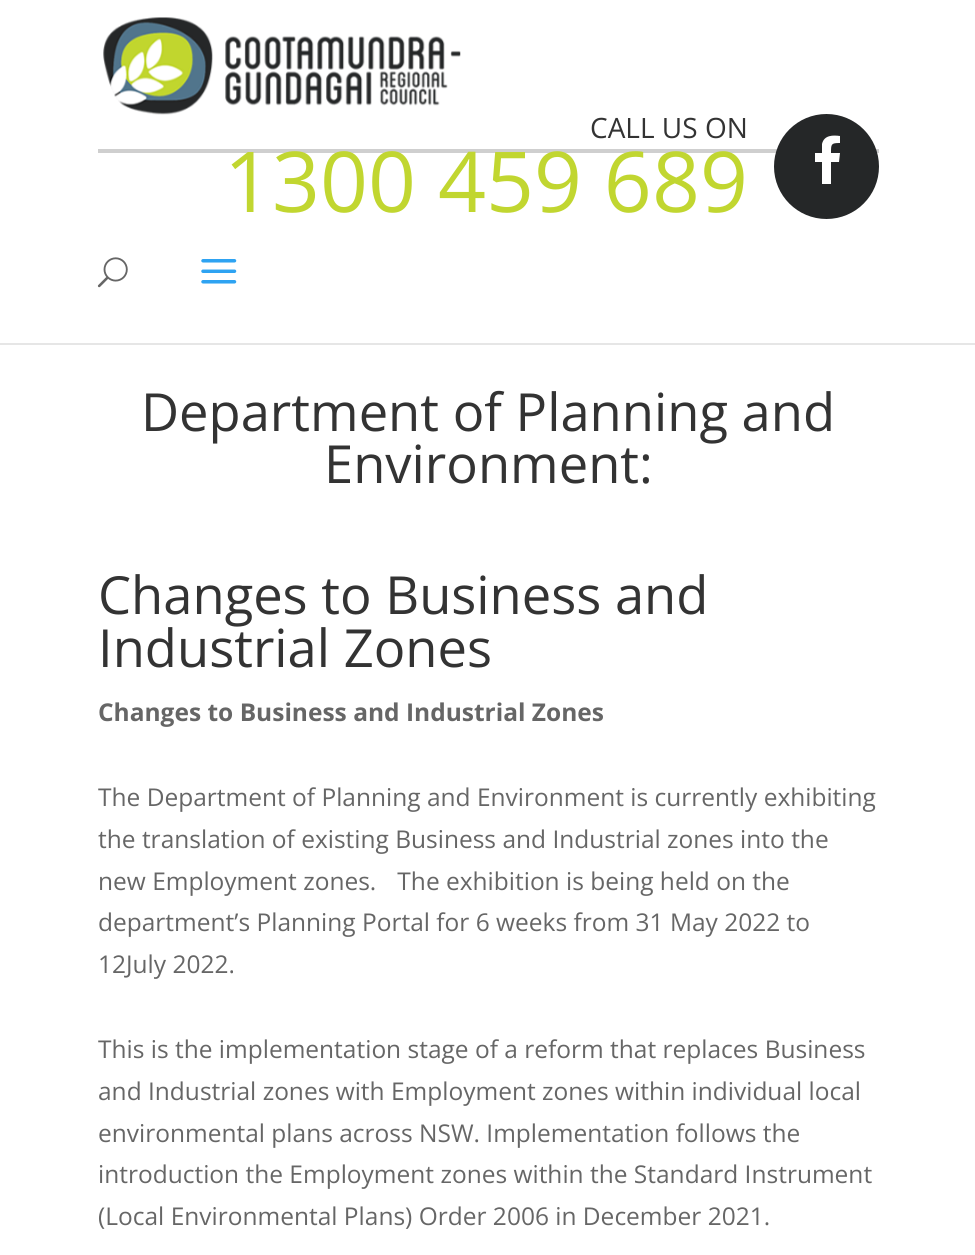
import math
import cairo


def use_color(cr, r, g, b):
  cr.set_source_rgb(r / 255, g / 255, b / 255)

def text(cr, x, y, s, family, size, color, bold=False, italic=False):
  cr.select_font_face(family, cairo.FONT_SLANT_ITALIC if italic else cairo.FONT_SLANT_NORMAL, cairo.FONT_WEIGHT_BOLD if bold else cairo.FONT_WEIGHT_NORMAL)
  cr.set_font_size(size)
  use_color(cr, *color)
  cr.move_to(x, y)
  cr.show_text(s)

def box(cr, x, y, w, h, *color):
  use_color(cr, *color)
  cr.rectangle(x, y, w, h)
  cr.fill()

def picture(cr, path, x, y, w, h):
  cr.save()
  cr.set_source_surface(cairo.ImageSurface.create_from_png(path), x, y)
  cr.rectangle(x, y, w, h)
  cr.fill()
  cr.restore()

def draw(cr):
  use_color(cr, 255, 255, 255)
  cr.paint()
  use_color(cr, 230, 230, 230)
  cr.new_path()
  cr.move_to(0, 343)
  cr.line_to(0, 345)
  cr.line_to(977, 345)
  cr.line_to(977, 2)
  cr.line_to(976, 2)
  cr.line_to(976, 343)
  cr.close_path()
  cr.fill()
  box(cr, 98, 149, 781, 4, 207, 207, 207)
  picture(cr, "img_01.png", 103, 17, 358, 98)
  use_color(cr, 37, 39, 40)
  cr.arc(826.5, 166.5, 52.5, 0, 2 * math.pi)
  cr.fill()
  use_color(cr, 255, 255, 255)
  cr.new_path()
  cr.move_to(840, 136)
  cr.line_to(840, 143)
  cr.curve_to(831, 143, 831, 144, 831, 153)
  cr.line_to(840, 153)
  cr.line_to(839, 162)
  cr.line_to(831, 162)
  cr.line_to(831, 184)
  cr.line_to(822, 184)
  cr.line_to(822, 162)
  cr.line_to(815, 162)
  cr.line_to(815, 153)
  cr.line_to(822, 153)
  cr.line_to(822, 144)
  cr.curve_to(824, 135, 833, 135, 840, 136)
  cr.close_path()
  cr.fill()
  picture(cr, "img_02.png", 97, 257, 31, 31)
  picture(cr, "img_03.png", 201, 259, 36, 25)
  text(cr, 590, 138, "CALL US ON", "Open Sans", 28, (51, 51, 51))
  text(cr, 224, 212, "1300 459 689", "Open Sans", 84, (193, 214, 48))
  text(cr, 141, 431, "Department of Planning and", "Open Sans", 52.5, (51, 51, 51))
  text(cr, 324, 483, "Environment:", "Open Sans", 52.5, (51, 51, 51))
  text(cr, 98, 614, "Changes to Business and", "Open Sans", 52.5, (51, 51, 51))
  text(cr, 98, 667, "Industrial Zones", "Open Sans", 52.5, (51, 51, 51))
  text(cr, 98, 721, "Changes to Business and Industrial Zones", "Open Sans", 24.5, (102, 102, 102), bold=True)
  text(cr, 98, 806, "The Department of Planning and Environment is currently exhibiting", "Open Sans", 24.5, (102, 102, 102))
  text(cr, 98, 848, "the translation of existing Business and Industrial zones into the", "Open Sans", 24.5, (102, 102, 102))
  text(cr, 98, 890, "new Employment zones.  The exhibition is being held on the", "Open Sans", 24.5, (102, 102, 102))
  text(cr, 98, 931, "department’s Planning Portal for 6 weeks from 31 May 2022 to", "Open Sans", 24.5, (102, 102, 102))
  text(cr, 98, 973, "12July 2022.", "Open Sans", 24.5, (102, 102, 102))
  text(cr, 98, 1058, "This is the implementation stage of a reform that replaces Business", "Open Sans", 24.5, (102, 102, 102))
  text(cr, 98, 1100, "and Industrial zones with Employment zones within individual local", "Open Sans", 24.5, (102, 102, 102))
  text(cr, 98, 1142, "environmental plans across NSW. Implementation follows the", "Open Sans", 24.5, (102, 102, 102))
  text(cr, 98, 1183, "introduction the Employment zones within the Standard Instrument", "Open Sans", 24.5, (102, 102, 102))
  text(cr, 98, 1225, "(Local Environmental Plans) Order 2006 in December 2021.", "Open Sans", 24.5, (102, 102, 102))


surface = cairo.ImageSurface(cairo.FORMAT_RGB24, 975, 1255)
cr = cairo.Context(surface)
options = cairo.FontOptions()
options.set_hint_metrics(cairo.HINT_METRICS_OFF)
options.set_hint_style(cairo.HINT_STYLE_NONE)
cr.set_font_options(options)
cr.set_miter_limit(4)
draw(cr)
surface.write_to_png("out.png")
